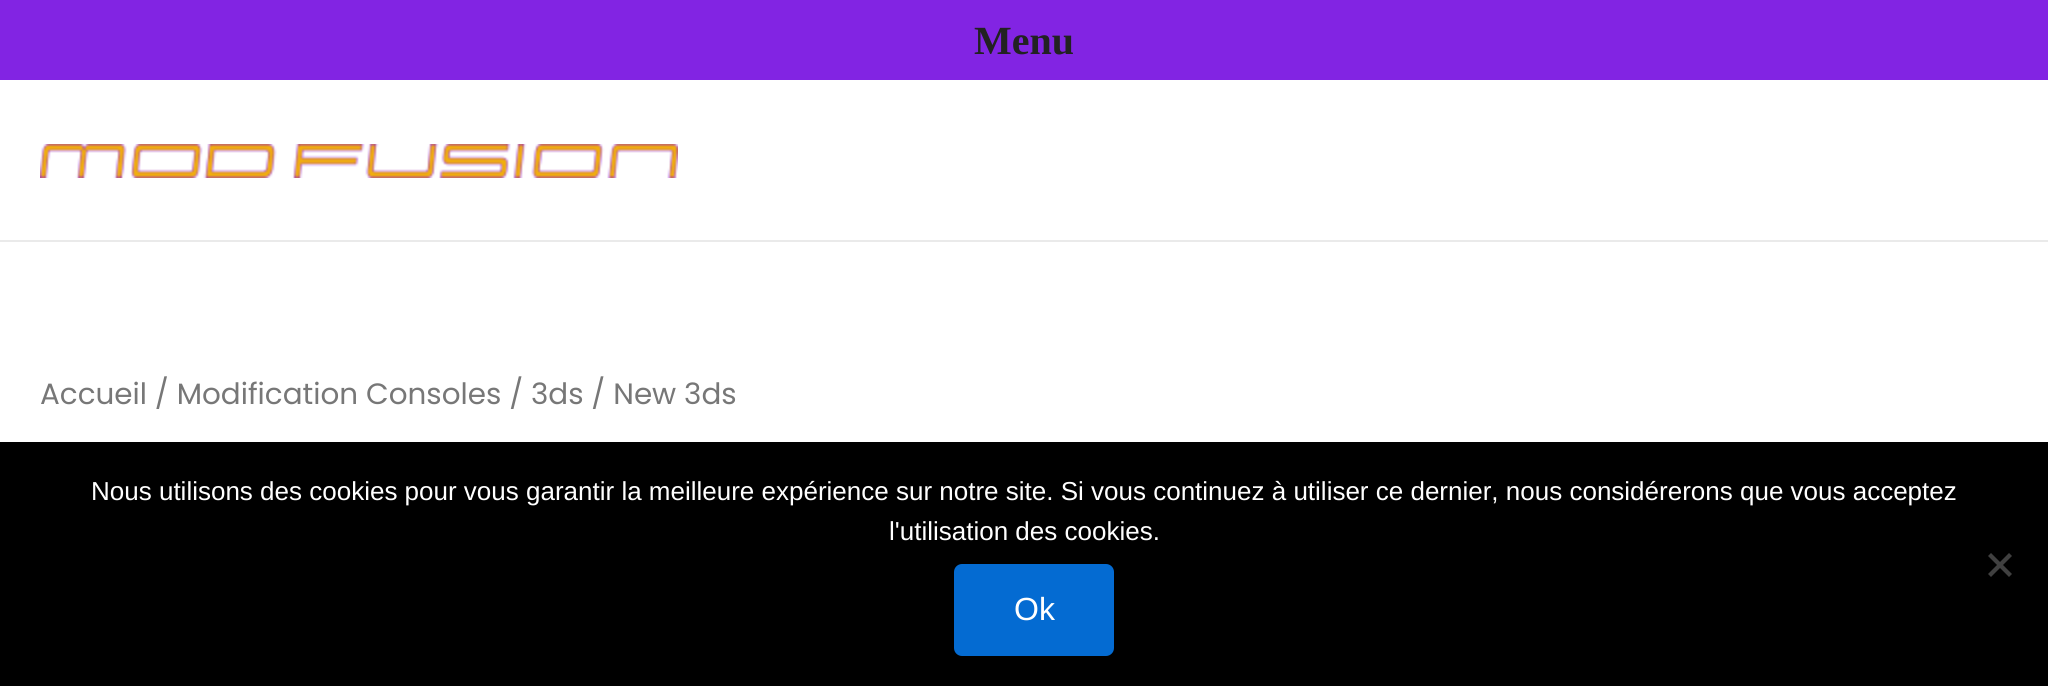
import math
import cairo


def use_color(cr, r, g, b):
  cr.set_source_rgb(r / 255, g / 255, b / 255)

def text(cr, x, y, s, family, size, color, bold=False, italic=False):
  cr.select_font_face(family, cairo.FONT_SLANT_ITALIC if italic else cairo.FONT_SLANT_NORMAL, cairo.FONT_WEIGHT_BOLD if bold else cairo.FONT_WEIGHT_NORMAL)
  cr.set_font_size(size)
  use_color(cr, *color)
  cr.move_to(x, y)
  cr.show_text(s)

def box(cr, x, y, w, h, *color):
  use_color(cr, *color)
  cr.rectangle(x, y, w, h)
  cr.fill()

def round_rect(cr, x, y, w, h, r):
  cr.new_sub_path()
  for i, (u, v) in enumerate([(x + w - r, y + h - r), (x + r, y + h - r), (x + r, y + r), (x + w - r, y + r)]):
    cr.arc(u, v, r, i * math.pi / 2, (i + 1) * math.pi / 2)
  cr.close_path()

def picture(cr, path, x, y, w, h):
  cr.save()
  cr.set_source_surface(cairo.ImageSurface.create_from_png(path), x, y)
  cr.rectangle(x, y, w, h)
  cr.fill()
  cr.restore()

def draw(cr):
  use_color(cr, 255, 255, 255)
  cr.paint()
  box(cr, 0, 0, 2048, 80, 130, 36, 227)
  box(cr, 0, 240, 2048, 2, 234, 234, 234)
  picture(cr, "img_01.png", 40, 144, 638, 34)
  box(cr, 0, 442, 2048, 244, 0, 0, 0)
  use_color(cr, 64, 64, 64)
  cr.new_path()
  cr.move_to(2009, 553)
  cr.line_to(2012, 556)
  cr.line_to(1991, 577)
  cr.line_to(1988, 574)
  cr.close_path()
  cr.fill()
  cr.new_path()
  cr.move_to(1988, 556)
  cr.line_to(1991, 553)
  cr.line_to(2012, 574)
  cr.line_to(2009, 577)
  cr.close_path()
  cr.fill()
  use_color(cr, 4, 107, 210)
  round_rect(cr, 954, 564, 160, 92, 8)
  cr.fill()
  text(cr, 974, 54, "Menu", "Liberation Serif", 40, (34, 34, 34), bold=True)
  text(cr, 40, 404, "Accueil / Modification Consoles / 3ds / New 3ds", "Poppins", 29.4, (119, 119, 119))
  text(cr, 91, 500, "Nous utilisons des cookies pour vous garantir la meilleure expérience sur notre site. Si vous continuez à utiliser ce dernier, nous considérerons que vous acceptez", "Liberation Sans", 26, (255, 255, 255))
  text(cr, 889, 540, "l'utilisation des cookies.", "Liberation Sans", 26, (255, 255, 255))
  text(cr, 1014, 620, "Ok", "Liberation Sans", 32, (255, 255, 255))


surface = cairo.ImageSurface(cairo.FORMAT_RGB24, 2048, 686)
cr = cairo.Context(surface)
options = cairo.FontOptions()
options.set_hint_metrics(cairo.HINT_METRICS_OFF)
options.set_hint_style(cairo.HINT_STYLE_NONE)
cr.set_font_options(options)
cr.set_miter_limit(4)
draw(cr)
surface.write_to_png("out.png")
